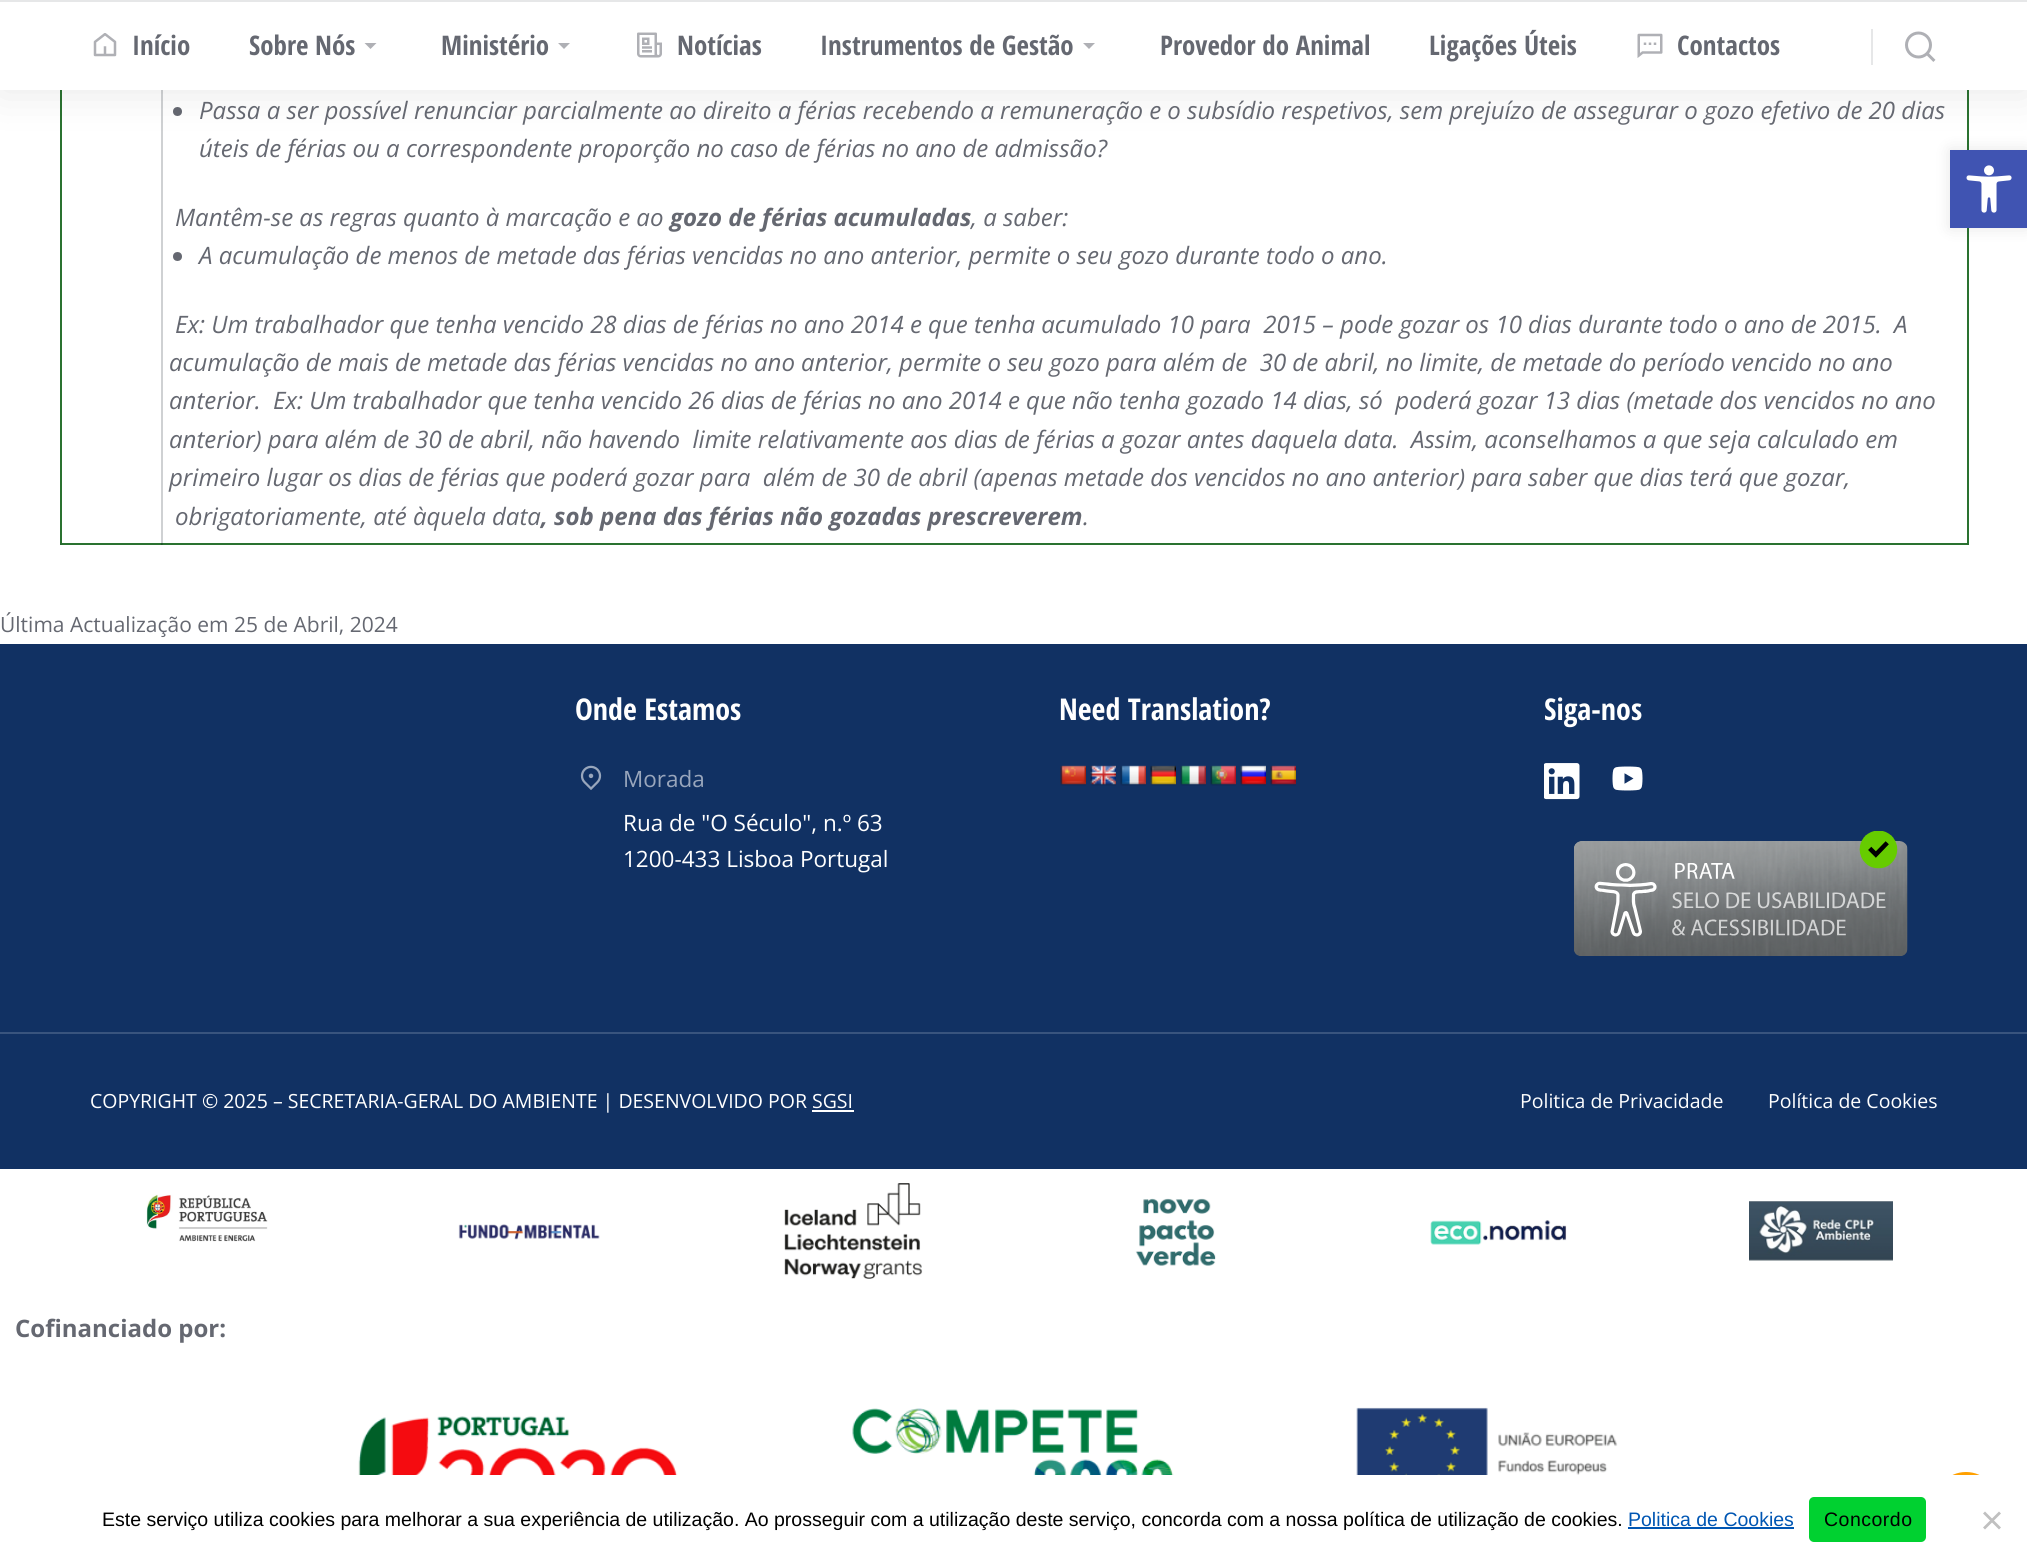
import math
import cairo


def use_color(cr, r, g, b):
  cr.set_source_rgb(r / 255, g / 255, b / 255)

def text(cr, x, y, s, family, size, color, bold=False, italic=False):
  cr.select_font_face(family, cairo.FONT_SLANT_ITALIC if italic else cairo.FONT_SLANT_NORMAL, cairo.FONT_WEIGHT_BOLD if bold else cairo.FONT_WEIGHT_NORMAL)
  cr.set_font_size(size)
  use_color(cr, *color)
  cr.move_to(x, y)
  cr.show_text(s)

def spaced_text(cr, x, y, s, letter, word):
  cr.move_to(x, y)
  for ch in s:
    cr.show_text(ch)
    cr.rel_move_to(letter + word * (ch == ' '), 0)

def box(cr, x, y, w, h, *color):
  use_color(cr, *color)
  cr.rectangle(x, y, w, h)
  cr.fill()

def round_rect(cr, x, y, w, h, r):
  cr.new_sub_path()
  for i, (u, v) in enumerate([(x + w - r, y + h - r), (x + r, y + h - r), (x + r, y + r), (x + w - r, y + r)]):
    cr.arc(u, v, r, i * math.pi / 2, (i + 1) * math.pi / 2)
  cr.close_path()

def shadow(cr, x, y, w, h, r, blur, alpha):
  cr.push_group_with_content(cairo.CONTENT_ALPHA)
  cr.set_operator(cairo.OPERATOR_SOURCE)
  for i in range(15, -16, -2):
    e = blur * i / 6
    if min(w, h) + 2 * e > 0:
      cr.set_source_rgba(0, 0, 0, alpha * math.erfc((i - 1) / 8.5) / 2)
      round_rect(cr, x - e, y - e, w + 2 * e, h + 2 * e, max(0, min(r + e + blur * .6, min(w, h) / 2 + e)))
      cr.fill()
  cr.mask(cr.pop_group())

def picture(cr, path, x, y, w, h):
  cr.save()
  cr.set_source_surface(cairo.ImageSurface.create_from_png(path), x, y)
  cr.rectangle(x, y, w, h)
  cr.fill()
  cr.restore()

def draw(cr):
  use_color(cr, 255, 255, 255)
  cr.paint()
  box(cr, 161, 90, 2, 455, 207, 209, 211)
  box(cr, 60, 543, 1908, 2, 42, 114, 48)
  box(cr, 60, 90, 2, 455, 42, 114, 48)
  box(cr, 1967, 90, 2, 455, 42, 114, 48)
  use_color(cr, 101, 104, 113)
  cr.arc(177.5, 111.5, 4.5, 0, 2 * math.pi)
  cr.fill()
  use_color(cr, 0, 0, 0)
  shadow(cr, 0, 0, 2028, 90, 0, 22.5, 0.1)
  box(cr, 0, 2, 2027, 88, 255, 255, 255)
  box(cr, 0, 0, 2027, 2, 230, 231, 232)
  picture(cr, "img_01.png", 93, 33, 24, 24)
  use_color(cr, 175, 176, 181)
  cr.new_path()
  cr.move_to(370.5, 49)
  cr.line_to(364.5, 43)
  cr.line_to(376.5, 43)
  cr.close_path()
  cr.fill()
  cr.new_path()
  cr.move_to(564, 49)
  cr.line_to(558, 43)
  cr.line_to(570, 43)
  cr.close_path()
  cr.fill()
  picture(cr, "img_02.png", 637, 32, 25, 26)
  cr.new_path()
  cr.move_to(1089, 49)
  cr.line_to(1083, 43)
  cr.line_to(1095, 43)
  cr.close_path()
  cr.fill()
  picture(cr, "img_03.png", 1637, 33, 26, 25)
  box(cr, 1871, 29, 2, 36, 230, 231, 232)
  picture(cr, "img_04.png", 1905, 31, 31, 31)
  box(cr, 161, 543, 2, 2, 35, 95, 44)
  box(cr, 161, 543, 1, 2, 32, 87, 42)
  box(cr, 60, 543, 2, 2, 38, 104, 46)
  box(cr, 1967, 543, 1, 2, 38, 104, 46)
  use_color(cr, 101, 104, 113)
  cr.arc(177.5, 256.5, 4.5, 0, 2 * math.pi)
  cr.fill()
  box(cr, 0, 644, 2027, 525, 17, 49, 99)
  picture(cr, "img_05.png", 580, 765, 22, 25)
  picture(cr, "img_06.png", 1060, 765, 26, 21)
  picture(cr, "img_07.png", 1090, 765, 26, 21)
  picture(cr, "img_08.png", 1120, 765, 26, 21)
  picture(cr, "img_09.png", 1150, 765, 26, 21)
  picture(cr, "img_10.png", 1180, 765, 26, 21)
  picture(cr, "img_11.png", 1210, 765, 26, 21)
  picture(cr, "img_12.png", 1240, 765, 26, 21)
  picture(cr, "img_13.png", 1270, 765, 26, 21)
  picture(cr, "img_14.png", 1544, 763, 36, 37)
  picture(cr, "img_15.png", 1612, 766, 31, 25)
  picture(cr, "img_16.png", 1574, 831, 334, 125)
  box(cr, 0, 1032, 2027, 2, 57, 84, 126)
  box(cr, 812, 1110, 42, 2, 255, 255, 255)
  picture(cr, "img_17.png", 146, 1194, 122, 48)
  picture(cr, "img_18.png", 458, 1224, 142, 16)
  picture(cr, "img_19.png", 784, 1183, 139, 96)
  picture(cr, "img_20.png", 1135, 1198, 81, 68)
  picture(cr, "img_21.png", 1430, 1220, 137, 25)
  picture(cr, "img_22.png", 1749, 1201, 144, 60)
  picture(cr, "img_23.png", 358, 1416, 320, 59)
  picture(cr, "img_24.png", 852, 1408, 322, 67)
  picture(cr, "img_25.png", 1356, 1407, 262, 68)
  use_color(cr, 255, 160, 0)
  cr.arc(1966, 1504, 32, 0, 2 * math.pi)
  cr.fill()
  use_color(cr, 0, 0, 0)
  shadow(cr, 1950, 150, 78, 78, 0, 7.5, 0.1)
  box(cr, 1950, 150, 77, 78, 64, 84, 178)
  picture(cr, "img_26.png", 1966, 165, 46, 48)
  box(cr, 1934, 1475, 64, 61, 255, 255, 255)
  box(cr, 1628, 1527, 166, 2, 0, 86, 179)
  use_color(cr, 0, 209, 48)
  round_rect(cr, 1809, 1497, 117, 45, 5)
  cr.fill()
  use_color(cr, 192, 192, 192)
  cr.new_path()
  cr.move_to(1999, 1511.5)
  cr.line_to(2001, 1513.5)
  cr.line_to(1985, 1529.5)
  cr.line_to(1983, 1527.5)
  cr.close_path()
  cr.fill()
  cr.new_path()
  cr.move_to(1983, 1513.5)
  cr.line_to(1985, 1511.5)
  cr.line_to(2001, 1527.5)
  cr.line_to(1999, 1529.5)
  cr.close_path()
  cr.fill()
  text(cr, 132, 55, "Início", "Open Sans Condensed", 27, (101, 104, 113), bold=True)
  text(cr, 249, 55, "Sobre Nós", "Open Sans Condensed", 27, (101, 104, 113), bold=True)
  text(cr, 441, 55, "Ministério", "Open Sans Condensed", 27, (101, 104, 113), bold=True)
  text(cr, 677, 55, "Notícias", "Open Sans Condensed", 27, (101, 104, 113), bold=True)
  text(cr, 820, 55, "Instrumentos de Gestão", "Open Sans Condensed", 27, (101, 104, 113), bold=True)
  text(cr, 1160, 55, "Provedor do Animal", "Open Sans Condensed", 27, (101, 104, 113), bold=True)
  text(cr, 1429, 55, "Ligações Úteis", "Open Sans Condensed", 27, (101, 104, 113), bold=True)
  text(cr, 1677, 55, "Contactos", "Open Sans Condensed", 27, (101, 104, 113), bold=True)
  text(cr, 199, 119, "Passa a ser possível renunciar parcialmente ao direito a férias recebendo a remuneração e o subsídio respetivos, sem prejuízo de assegurar o gozo efetivo de 20 dias", "Open Sans", 24, (101, 104, 113), italic=True)
  text(cr, 199, 157, "úteis de férias ou a correspondente proporção no caso de férias no ano de admissão?", "Open Sans", 24, (101, 104, 113), italic=True)
  text(cr, 175, 226, "Mantêm-se as regras quanto à marcação e ao", "Open Sans", 24, (101, 104, 113), italic=True)
  text(cr, 670, 226, "gozo de férias acumuladas", "Open Sans", 24, (101, 104, 113), bold=True, italic=True)
  text(cr, 971, 226, ", a saber:", "Open Sans", 24, (101, 104, 113), italic=True)
  text(cr, 199, 264, "A acumulação de menos de metade das férias vencidas no ano anterior, permite o seu gozo durante todo o ano.", "Open Sans", 24, (101, 104, 113), italic=True)
  text(cr, 175, 333, "Ex: Um trabalhador que tenha vencido 28 dias de férias no ano 2014 e que tenha acumulado 10 para  2015 – pode gozar os 10 dias durante todo o ano de 2015.", "Open Sans", 24, (101, 104, 113), italic=True)
  text(cr, 1894, 333, "A", "Open Sans", 24, (101, 104, 113), italic=True)
  text(cr, 169, 371, "acumulação de mais de metade das férias vencidas no ano anterior, permite o seu gozo para além de  30 de abril, no limite, de metade do período vencido no ano", "Open Sans", 24, (101, 104, 113), italic=True)
  text(cr, 169, 409, "anterior.", "Open Sans", 24, (101, 104, 113), italic=True)
  text(cr, 273, 409, "Ex: Um trabalhador que tenha vencido 26 dias de férias no ano 2014 e que não tenha gozado 14 dias, só  poderá gozar 13 dias (metade dos vencidos no ano", "Open Sans", 24, (101, 104, 113), italic=True)
  text(cr, 169, 448, "anterior) para além de 30 de abril, não havendo  limite relativamente aos dias de férias a gozar antes daquela data.", "Open Sans", 24, (101, 104, 113), italic=True)
  text(cr, 1411, 448, "Assim, aconselhamos a que seja calculado em", "Open Sans", 24, (101, 104, 113), italic=True)
  text(cr, 169, 486, "primeiro lugar os dias de férias que poderá gozar para  além de 30 de abril (apenas metade dos vencidos no ano anterior) para saber que dias terá que gozar,", "Open Sans", 24, (101, 104, 113), italic=True)
  text(cr, 175, 525, "obrigatoriamente, até àquela data", "Open Sans", 24, (101, 104, 113), italic=True)
  text(cr, 541, 525, ", sob pena das férias não gozadas prescreverem", "Open Sans", 24, (101, 104, 113), bold=True, italic=True)
  text(cr, 1083, 525, ".", "Open Sans", 24, (101, 104, 113), italic=True)
  text(cr, 0, 632, "Última Actualização em 25 de Abril, 2024", "Open Sans", 21, (101, 104, 113))
  text(cr, 575, 720, "Onde Estamos", "Open Sans Condensed", 30, (255, 255, 255), bold=True)
  text(cr, 623, 787, "Morada", "Open Sans", 22.5, (153, 166, 188))
  text(cr, 623, 831, "Rua de \"O Século\", n.º 63", "Open Sans", 22.5, (255, 255, 255))
  text(cr, 623, 867, "1200-433 Lisboa Portugal", "Open Sans", 22.5, (255, 255, 255))
  text(cr, 1059, 720, "Need Translation?", "Open Sans Condensed", 30, (255, 255, 255), bold=True)
  text(cr, 1544, 720, "Siga-nos", "Open Sans Condensed", 30, (255, 255, 255), bold=True)
  text(cr, 90, 1108, "COPYRIGHT © 2025 – SECRETARIA-GERAL DO AMBIENTE | DESENVOLVIDO POR SGSI", "Open Sans", 19.5, (255, 255, 255))
  text(cr, 1520, 1108, "Politica de Privacidade", "Open Sans", 19.5, (255, 255, 255))
  text(cr, 1768, 1108, "Política de Cookies", "Open Sans", 19.5, (255, 255, 255))
  text(cr, 15, 1337, "Cofinanciado por:", "Open Sans", 24, (101, 104, 113), bold=True)
  text(cr, 102, 1526, "Este serviço utiliza cookies para melhorar a sua experiência de utilização. Ao prosseguir com a utilização deste serviço, concorda com a nossa política de utilização de cookies.", "Liberation Sans", 19.5, (0, 0, 0))
  text(cr, 1628, 1526, "Politica de Cookies", "Liberation Sans", 19.5, (0, 86, 179))
  use_color(cr, 0, 0, 0)
  spaced_text(cr, 1824, 1526, "Concordo", 0.5, 0)


surface = cairo.ImageSurface(cairo.FORMAT_RGB24, 2027, 1566)
cr = cairo.Context(surface)
options = cairo.FontOptions()
options.set_hint_metrics(cairo.HINT_METRICS_OFF)
options.set_hint_style(cairo.HINT_STYLE_NONE)
cr.set_font_options(options)
cr.set_miter_limit(4)
draw(cr)
surface.write_to_png("out.png")
